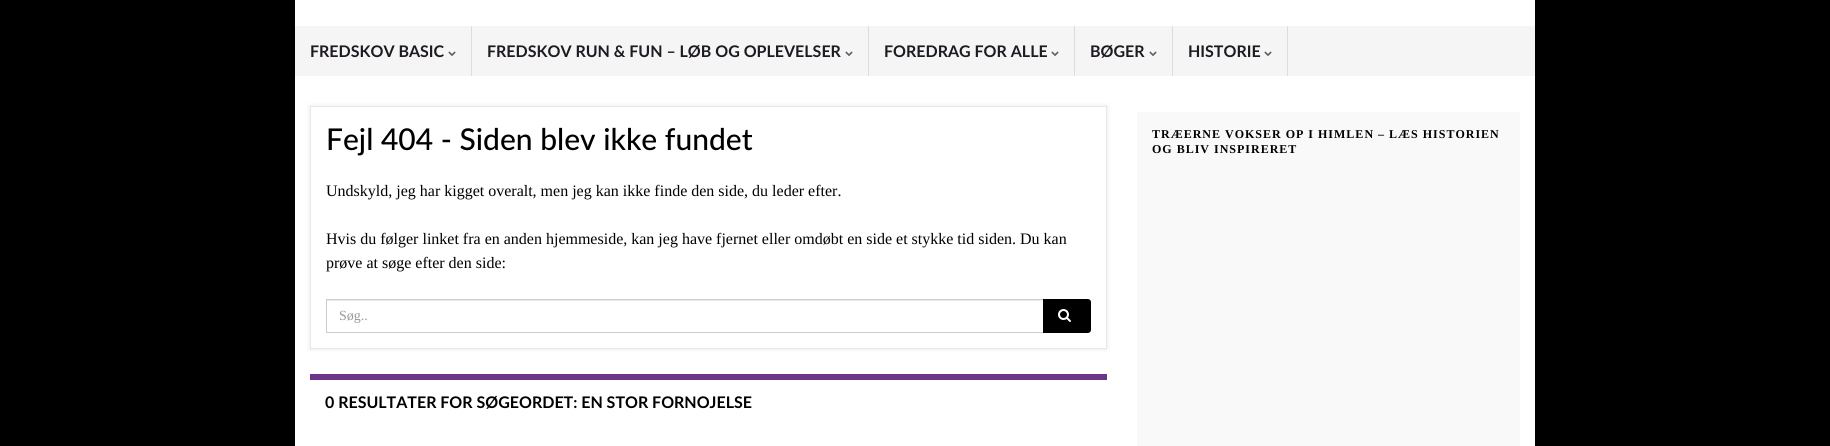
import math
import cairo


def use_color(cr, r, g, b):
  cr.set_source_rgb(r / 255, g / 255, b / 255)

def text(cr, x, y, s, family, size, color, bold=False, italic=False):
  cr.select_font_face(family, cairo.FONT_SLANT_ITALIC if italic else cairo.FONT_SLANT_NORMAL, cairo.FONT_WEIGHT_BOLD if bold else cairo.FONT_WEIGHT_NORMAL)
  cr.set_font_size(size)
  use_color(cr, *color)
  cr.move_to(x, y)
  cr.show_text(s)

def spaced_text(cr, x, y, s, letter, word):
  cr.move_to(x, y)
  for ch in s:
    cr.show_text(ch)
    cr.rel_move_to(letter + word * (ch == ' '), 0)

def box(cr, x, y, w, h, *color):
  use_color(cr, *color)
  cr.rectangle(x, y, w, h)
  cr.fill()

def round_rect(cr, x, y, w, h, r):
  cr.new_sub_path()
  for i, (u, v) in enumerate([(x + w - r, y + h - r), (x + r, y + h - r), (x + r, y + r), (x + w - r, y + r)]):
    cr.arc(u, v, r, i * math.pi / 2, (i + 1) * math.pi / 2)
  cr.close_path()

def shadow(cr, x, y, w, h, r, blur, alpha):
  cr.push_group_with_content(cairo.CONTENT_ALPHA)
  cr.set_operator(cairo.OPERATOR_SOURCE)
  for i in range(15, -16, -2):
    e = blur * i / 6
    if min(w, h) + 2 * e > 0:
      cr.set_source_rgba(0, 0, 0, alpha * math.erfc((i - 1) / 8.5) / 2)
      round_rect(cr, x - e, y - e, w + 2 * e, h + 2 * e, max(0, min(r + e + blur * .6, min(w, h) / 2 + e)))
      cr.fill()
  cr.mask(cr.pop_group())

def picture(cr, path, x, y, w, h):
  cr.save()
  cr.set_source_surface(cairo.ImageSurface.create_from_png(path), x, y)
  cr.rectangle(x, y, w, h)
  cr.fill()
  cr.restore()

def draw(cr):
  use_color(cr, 0, 0, 0)
  cr.paint()
  box(cr, 295, 0, 1240, 26, 255, 255, 255)
  box(cr, 295, 26, 1240, 50, 245, 245, 245)
  box(cr, 471, 26, 1, 50, 221, 221, 221)
  picture(cr, "img_01.png", 448, 51, 8, 5)
  box(cr, 868, 26, 1, 50, 221, 221, 221)
  picture(cr, "img_01.png", 845, 51, 8, 5)
  box(cr, 1074, 26, 1, 50, 221, 221, 221)
  picture(cr, "img_01.png", 1051, 51, 8, 5)
  box(cr, 1172, 26, 1, 50, 221, 221, 221)
  picture(cr, "img_01.png", 1149, 51, 8, 5)
  box(cr, 1287, 26, 1, 50, 221, 221, 221)
  picture(cr, "img_01.png", 1264, 51, 8, 5)
  box(cr, 295, 76, 1240, 370, 255, 255, 255)
  cr.save()
  cr.set_fill_rule(cairo.FILL_RULE_EVEN_ODD)
  cr.new_path()
  cr.move_to(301, 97)
  cr.line_to(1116, 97)
  cr.line_to(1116, 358)
  cr.line_to(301, 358)
  cr.close_path()
  cr.move_to(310, 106)
  cr.line_to(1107, 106)
  cr.line_to(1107, 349)
  cr.line_to(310, 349)
  cr.close_path()
  cr.clip()
  use_color(cr, 0, 0, 0)
  shadow(cr, 310, 106, 797, 243, 0, 2.5, 0.1)
  cr.restore()
  cr.rectangle(310.5, 106.5, 796, 242)
  use_color(cr, 233, 232, 227)
  cr.set_line_width(1)
  cr.stroke()
  box(cr, 327, 300, 716, 1, 236, 236, 236)
  cr.rectangle(326.5, 299.5, 717, 33)
  use_color(cr, 204, 204, 204)
  cr.stroke()
  use_color(cr, 0, 0, 0)
  cr.new_path()
  cr.move_to(1043, 299)
  cr.line_to(1088, 299)
  cr.curve_to(1089.5, 299, 1091, 300.5, 1091, 302)
  cr.line_to(1091, 330)
  cr.curve_to(1091, 331.5, 1089.5, 333, 1088, 333)
  cr.line_to(1043, 333)
  cr.close_path()
  cr.fill()
  picture(cr, "img_02.png", 1058, 309, 13, 13)
  box(cr, 310, 374, 797, 6, 107, 53, 137)
  box(cr, 1137, 112, 383, 334, 249, 249, 249)
  text(cr, 310, 57, "FREDSKOV BASIC", "Lato", 16, (31, 26, 34), bold=True)
  text(cr, 487, 57, "FREDSKOV RUN & FUN – LØB OG OPLEVELSER", "Lato", 16, (31, 26, 34), bold=True)
  text(cr, 884, 57, "FOREDRAG FOR ALLE", "Lato", 16, (31, 26, 34), bold=True)
  text(cr, 1090, 57, "BØGER", "Lato", 16, (31, 26, 34), bold=True)
  text(cr, 1188, 57, "HISTORIE", "Lato", 16, (31, 26, 34), bold=True)
  text(cr, 326, 150, "Fejl 404 - Siden blev ikke fundet", "Lato Medium", 30, (0, 0, 0))
  text(cr, 326, 196, "Undskyld, jeg har kigget overalt, men jeg kan ikke finde den side, du leder efter.", "Liberation Serif", 16, (0, 0, 0))
  text(cr, 326, 244, "Hvis du følger linket fra en anden hjemmeside, kan jeg have fjernet eller omdøbt en side et stykke tid siden. Du kan", "Liberation Serif", 16, (0, 0, 0))
  text(cr, 326, 268, "prøve at søge efter den side:", "Liberation Serif", 16, (0, 0, 0))
  text(cr, 339, 320, "Søg..", "Liberation Serif", 14, (153, 153, 153))
  text(cr, 325, 408, "0 RESULTATER FOR SØGEORDET: EN STOR FORNOJELSE", "Lato", 16, (0, 0, 0), bold=True)
  cr.select_font_face("Liberation Serif", cairo.FONT_SLANT_NORMAL, cairo.FONT_WEIGHT_BOLD)
  cr.set_font_size(12)
  spaced_text(cr, 1152, 138, "TRÆERNE VOKSER OP I HIMLEN – LÆS HISTORIEN", 1, 0)
  spaced_text(cr, 1152, 153, "OG BLIV INSPIRERET", 1, 0)


surface = cairo.ImageSurface(cairo.FORMAT_RGB24, 1830, 446)
cr = cairo.Context(surface)
options = cairo.FontOptions()
options.set_hint_metrics(cairo.HINT_METRICS_OFF)
options.set_hint_style(cairo.HINT_STYLE_NONE)
cr.set_font_options(options)
cr.set_miter_limit(4)
draw(cr)
surface.write_to_png("out.png")
